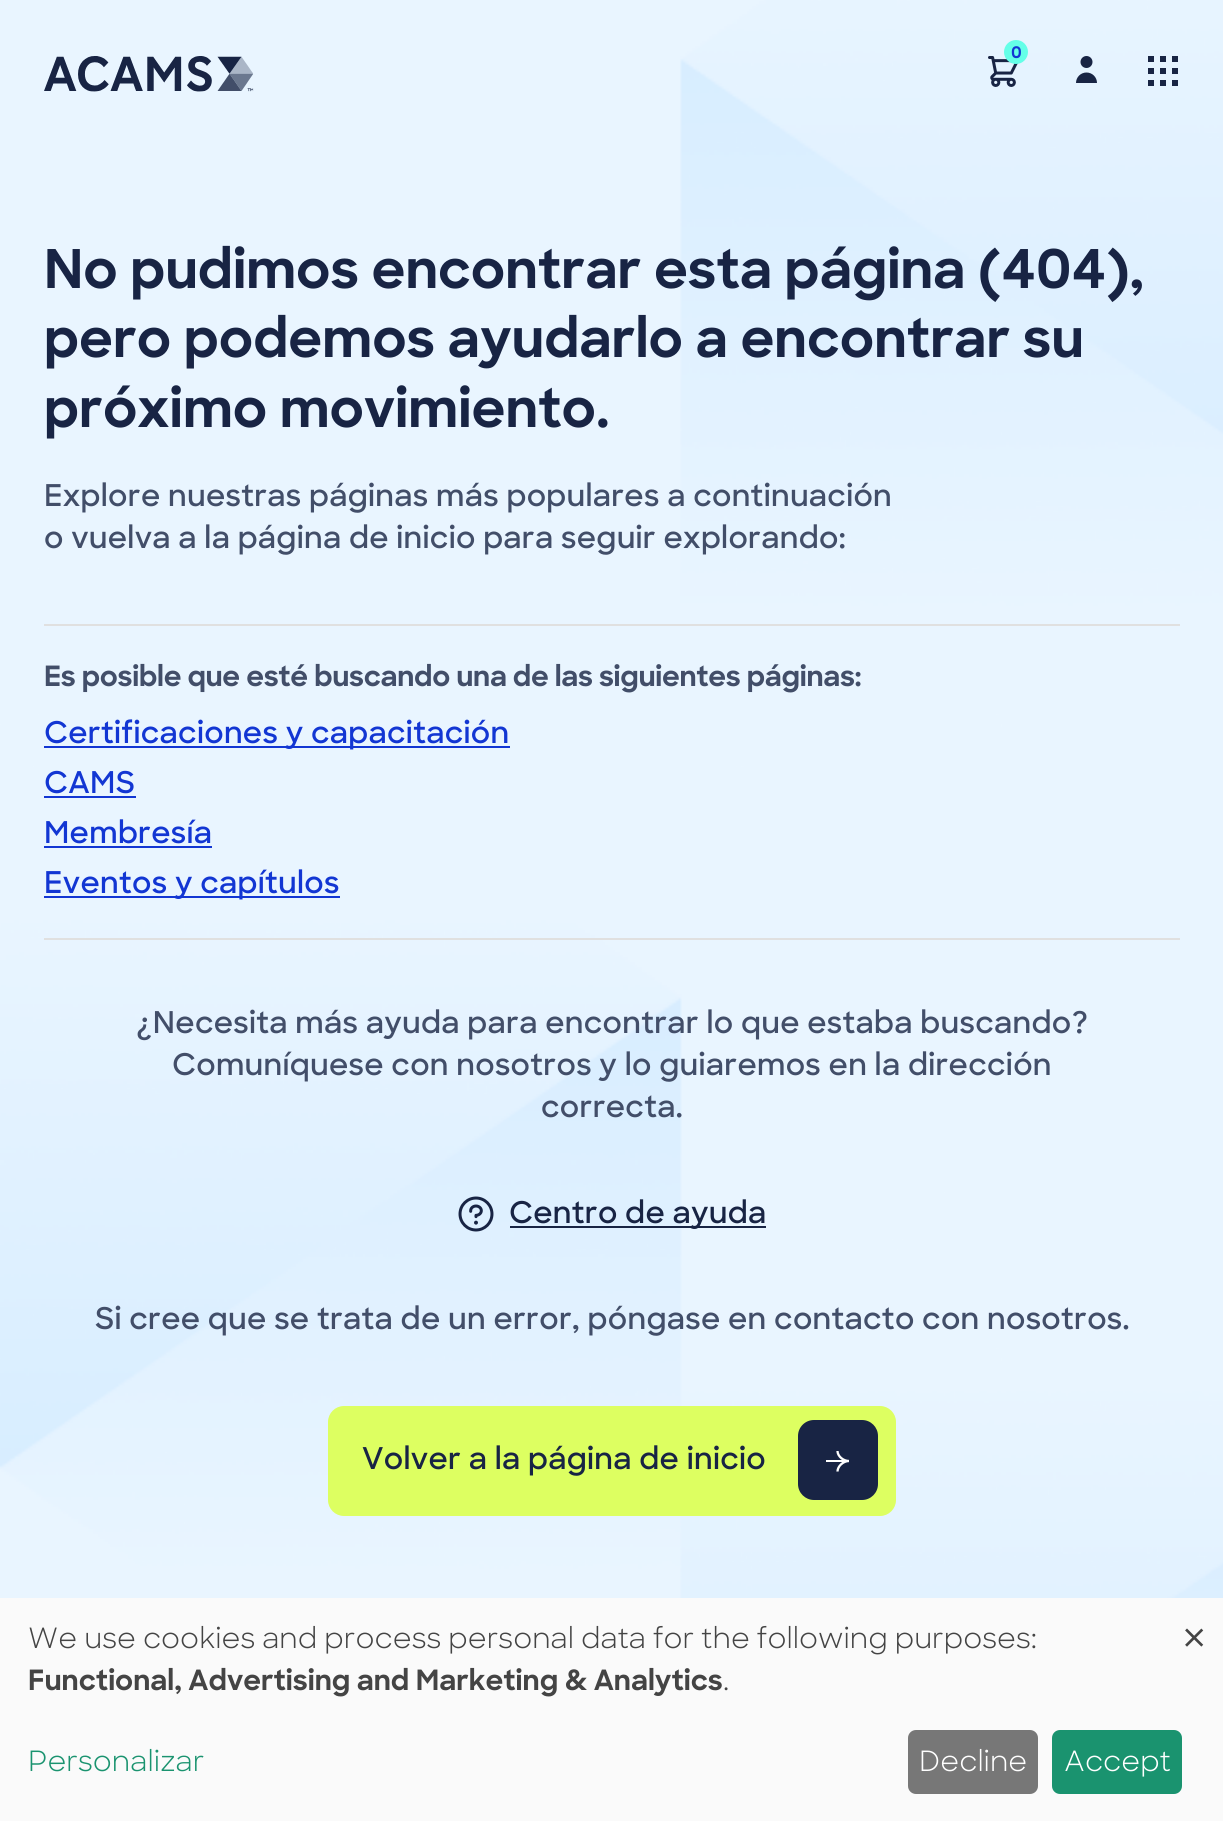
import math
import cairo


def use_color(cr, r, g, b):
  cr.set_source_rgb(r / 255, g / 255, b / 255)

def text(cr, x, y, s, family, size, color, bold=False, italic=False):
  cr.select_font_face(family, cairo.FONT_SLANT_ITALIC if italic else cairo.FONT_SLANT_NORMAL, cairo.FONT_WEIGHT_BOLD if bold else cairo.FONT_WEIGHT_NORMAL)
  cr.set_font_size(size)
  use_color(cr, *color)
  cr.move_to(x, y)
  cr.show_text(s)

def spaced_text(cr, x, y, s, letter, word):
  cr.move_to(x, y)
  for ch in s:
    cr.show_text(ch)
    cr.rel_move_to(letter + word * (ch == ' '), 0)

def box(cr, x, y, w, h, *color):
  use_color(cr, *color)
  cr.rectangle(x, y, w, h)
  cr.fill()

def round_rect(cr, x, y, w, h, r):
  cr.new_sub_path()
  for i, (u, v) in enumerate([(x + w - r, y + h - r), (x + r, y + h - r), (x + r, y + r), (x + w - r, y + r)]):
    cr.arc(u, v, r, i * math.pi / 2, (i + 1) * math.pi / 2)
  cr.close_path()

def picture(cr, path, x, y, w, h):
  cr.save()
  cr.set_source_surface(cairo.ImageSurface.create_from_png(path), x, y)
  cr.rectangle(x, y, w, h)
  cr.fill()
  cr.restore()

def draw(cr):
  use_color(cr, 255, 255, 255)
  cr.paint()
  picture(cr, "img_05.png", 0, 0, 1223, 1598)
  picture(cr, "img_01.png", 988, 56, 30, 31)
  use_color(cr, 100, 255, 232)
  cr.arc(1016, 52, 12, 0, 2 * math.pi)
  cr.fill()
  picture(cr, "img_02.png", 1076, 56, 21, 27)
  picture(cr, "img_03.png", 1148, 56, 30, 30)
  picture(cr, "img_04.png", 44, 56, 210, 36)
  box(cr, 44, 624, 1136, 2, 224, 224, 224)
  box(cr, 44, 938, 1136, 2, 224, 224, 224)
  box(cr, 44, 746, 466, 2, 18, 54, 211)
  box(cr, 44, 796, 92, 2, 18, 54, 211)
  box(cr, 44, 846, 168, 2, 18, 54, 211)
  box(cr, 44, 896, 296, 2, 18, 54, 211)
  picture(cr, "img_06.png", 458, 1196, 36, 36)
  box(cr, 510, 1226, 256, 2, 24, 36, 68)
  use_color(cr, 221, 255, 97)
  round_rect(cr, 329, 1407, 566, 108, 15)
  cr.fill_preserve()
  cr.stroke()
  use_color(cr, 24, 36, 68)
  round_rect(cr, 798, 1420, 80, 80, 16)
  cr.fill()
  cr.new_path()
  cr.move_to(849, 1461)
  cr.curve_to(843, 1461, 837.5, 1466.5, 837.5, 1471.5)
  cr.move_to(849, 1461)
  cr.curve_to(843, 1461, 837.5, 1456, 837.5, 1451)
  use_color(cr, 255, 255, 255)
  cr.set_line_width(2.3)
  cr.stroke()
  box(cr, 826, 1460, 23, 2, 255, 255, 255)
  box(cr, 0, 1598, 1223, 223, 250, 250, 250)
  use_color(cr, 119, 119, 119)
  round_rect(cr, 908, 1730, 130, 64, 8)
  cr.fill()
  use_color(cr, 26, 147, 111)
  round_rect(cr, 1052, 1730, 130, 64, 8)
  cr.fill()
  text(cr, 1011, 58, "0", "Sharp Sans", 16, (18, 54, 211), bold=True)
  text(cr, 44, 288, "No pudimos encontrar esta página (404),", "Sharp Sans", 53.4, (24, 36, 68), bold=True)
  text(cr, 44, 357, "pero podemos ayudarlo a encontrar su", "Sharp Sans", 53.4, (24, 36, 68), bold=True)
  text(cr, 44, 427, "próximo movimiento.", "Sharp Sans", 53.4, (24, 36, 68), bold=True)
  cr.select_font_face("Sharp Sans SemiBold")
  cr.set_font_size(30)
  use_color(cr, 66, 78, 105)
  spaced_text(cr, 44, 506, "Explore nuestras páginas más populares a continuación", 0.3, 0)
  spaced_text(cr, 44, 548, "o vuelva a la página de inicio para seguir explorando:", 0.3, 0)
  cr.select_font_face("Sharp Sans", cairo.FONT_SLANT_NORMAL, cairo.FONT_WEIGHT_BOLD)
  cr.set_font_size(28)
  spaced_text(cr, 44, 686, "Es posible que esté buscando una de las siguientes páginas:", -0.28, 0)
  cr.select_font_face("Sharp Sans SemiBold")
  cr.set_font_size(30)
  use_color(cr, 18, 54, 211)
  spaced_text(cr, 44, 743, "Certificaciones y capacitación", 0.3, 0)
  spaced_text(cr, 44, 793, "CAMS", 0.3, 0)
  spaced_text(cr, 44, 843, "Membresía", 0.3, 0)
  spaced_text(cr, 44, 893, "Eventos y capítulos", 0.3, 0)
  use_color(cr, 66, 78, 105)
  spaced_text(cr, 136, 1033, "¿Necesita más ayuda para encontrar lo que estaba buscando?", 0.3, 0)
  spaced_text(cr, 172, 1075, "Comuníquese con nosotros y lo guiaremos en la dirección", 0.3, 0)
  spaced_text(cr, 541, 1117, "correcta.", 0.3, 0)
  use_color(cr, 24, 36, 68)
  spaced_text(cr, 509, 1223, "Centro de ayuda", 0.3, 0)
  use_color(cr, 66, 78, 105)
  spaced_text(cr, 95, 1329, "Si cree que se trata de un error, póngase en contacto con nosotros.", 0.3, 0)
  use_color(cr, 24, 36, 68)
  spaced_text(cr, 362, 1469, "Volver a la página de inicio", 0.3, 0)
  text(cr, 28, 1648, "We use cookies and process personal data for the following purposes:", "Sharp Sans", 28, (68, 68, 68))
  text(cr, 28, 1690, "Functional, Advertising and Marketing & Analytics", "Sharp Sans", 28, (68, 68, 68), bold=True)
  text(cr, 723, 1690, ".", "Sharp Sans", 28, (68, 68, 68))
  text(cr, 28, 1771, "Personalizar", "Sharp Sans", 28, (26, 147, 111))
  text(cr, 919, 1771, "Decline", "Sharp Sans", 28, (255, 255, 255))
  text(cr, 1064, 1771, "Accept", "Sharp Sans", 28, (255, 255, 255))
  text(cr, 1180, 1658, "×", "Sharp Sans", 56, (68, 68, 68))


surface = cairo.ImageSurface(cairo.FORMAT_RGB24, 1223, 1821)
cr = cairo.Context(surface)
options = cairo.FontOptions()
options.set_hint_metrics(cairo.HINT_METRICS_OFF)
options.set_hint_style(cairo.HINT_STYLE_NONE)
cr.set_font_options(options)
cr.set_miter_limit(4)
draw(cr)
surface.write_to_png("out.png")
